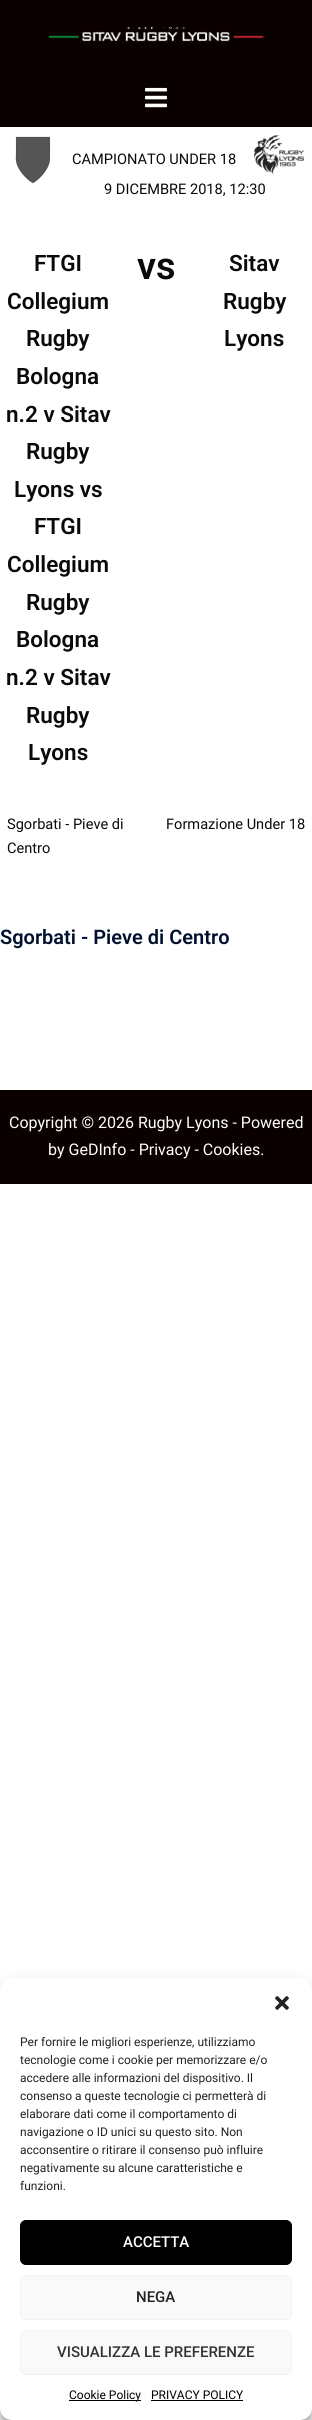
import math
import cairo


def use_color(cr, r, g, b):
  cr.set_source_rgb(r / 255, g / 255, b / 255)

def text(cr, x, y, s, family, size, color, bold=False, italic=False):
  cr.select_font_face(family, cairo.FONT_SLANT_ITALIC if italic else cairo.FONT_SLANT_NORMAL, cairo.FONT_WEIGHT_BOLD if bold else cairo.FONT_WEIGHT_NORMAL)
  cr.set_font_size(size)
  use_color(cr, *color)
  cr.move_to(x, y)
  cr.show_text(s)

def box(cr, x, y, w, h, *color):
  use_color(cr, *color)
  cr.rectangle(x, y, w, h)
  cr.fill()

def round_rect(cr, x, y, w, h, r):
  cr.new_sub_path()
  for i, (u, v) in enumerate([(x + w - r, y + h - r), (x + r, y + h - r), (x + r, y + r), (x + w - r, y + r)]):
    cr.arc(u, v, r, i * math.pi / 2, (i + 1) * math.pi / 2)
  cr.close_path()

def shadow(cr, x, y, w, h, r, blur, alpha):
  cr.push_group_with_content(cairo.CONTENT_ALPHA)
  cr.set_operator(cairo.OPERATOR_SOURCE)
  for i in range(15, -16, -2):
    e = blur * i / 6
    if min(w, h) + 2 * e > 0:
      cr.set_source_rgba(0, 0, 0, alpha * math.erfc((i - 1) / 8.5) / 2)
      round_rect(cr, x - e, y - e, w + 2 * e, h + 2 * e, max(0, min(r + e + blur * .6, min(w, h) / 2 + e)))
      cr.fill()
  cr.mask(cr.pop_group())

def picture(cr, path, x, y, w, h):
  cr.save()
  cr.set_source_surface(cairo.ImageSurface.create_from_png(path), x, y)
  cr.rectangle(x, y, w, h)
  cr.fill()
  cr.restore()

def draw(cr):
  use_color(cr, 255, 255, 255)
  cr.paint()
  box(cr, 0, 0, 312, 127, 10, 0, 0)
  picture(cr, "img_01.png", 48, 26, 216, 16)
  picture(cr, "img_02.png", 145, 87, 22, 21)
  picture(cr, "img_03.png", 15, 136, 36, 47)
  picture(cr, "img_04.png", 254, 135, 50, 39)
  box(cr, 0, 1090, 312, 94, 10, 0, 0)
  use_color(cr, 0, 0, 0)
  shadow(cr, 0, 1984, 312, 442, 12, 3, 0.23)
  shadow(cr, 0, 1988, 312, 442, 12, 10, 0.19)
  use_color(cr, 255, 255, 255)
  round_rect(cr, 0, 1978, 312, 442, 12)
  cr.fill()
  picture(cr, "img_05.png", 275, 1996, 14, 14)
  use_color(cr, 0, 0, 0)
  round_rect(cr, 20.5, 2220.5, 271, 44, 5.5)
  cr.fill_preserve()
  cr.set_line_width(1)
  cr.stroke()
  use_color(cr, 249, 249, 249)
  round_rect(cr, 20.5, 2275.5, 271, 44, 5.5)
  cr.fill_preserve()
  use_color(cr, 242, 242, 242)
  cr.stroke()
  use_color(cr, 249, 249, 249)
  round_rect(cr, 20.5, 2330.5, 271, 44, 5.5)
  cr.fill_preserve()
  use_color(cr, 242, 242, 242)
  cr.stroke()
  box(cr, 69, 2400, 72, 1, 0, 0, 0)
  box(cr, 151, 2400, 92, 1, 0, 0, 0)
  text(cr, 72, 164, "CAMPIONATO UNDER 18", "Roboto", 14.6, (10, 10, 10))
  text(cr, 104, 194, "9 DICEMBRE 2018, 12:30", "Roboto", 14.6, (10, 10, 10))
  text(cr, 34, 271, "FTGI", "Roboto SemiBold", 22.5, (10, 10, 10))
  text(cr, 7, 309, "Collegium", "Roboto SemiBold", 22.5, (10, 10, 10))
  text(cr, 26, 346, "Rugby", "Roboto SemiBold", 22.5, (10, 10, 10))
  text(cr, 16, 384, "Bologna", "Roboto SemiBold", 22.5, (10, 10, 10))
  text(cr, 6, 422, "n.2 v Sitav", "Roboto SemiBold", 22.5, (10, 10, 10))
  text(cr, 26, 459, "Rugby", "Roboto SemiBold", 22.5, (10, 10, 10))
  text(cr, 14, 497, "Lyons vs", "Roboto SemiBold", 22.5, (10, 10, 10))
  text(cr, 34, 534, "FTGI", "Roboto SemiBold", 22.5, (10, 10, 10))
  text(cr, 7, 572, "Collegium", "Roboto SemiBold", 22.5, (10, 10, 10))
  text(cr, 26, 610, "Rugby", "Roboto SemiBold", 22.5, (10, 10, 10))
  text(cr, 16, 647, "Bologna", "Roboto SemiBold", 22.5, (10, 10, 10))
  text(cr, 6, 685, "n.2 v Sitav", "Roboto SemiBold", 22.5, (10, 10, 10))
  text(cr, 26, 723, "Rugby", "Roboto SemiBold", 22.5, (10, 10, 10))
  text(cr, 28, 760, "Lyons", "Roboto SemiBold", 22.5, (10, 10, 10))
  text(cr, 137, 279, "vs", "Roboto SemiBold", 38, (10, 10, 10))
  text(cr, 229, 271, "Sitav", "Roboto SemiBold", 22.5, (10, 10, 10))
  text(cr, 223, 309, "Rugby", "Roboto SemiBold", 22.5, (10, 10, 10))
  text(cr, 224, 346, "Lyons", "Roboto SemiBold", 22.5, (10, 10, 10))
  text(cr, 7, 829, "Sgorbati - Pieve di", "Roboto", 14.6, (10, 10, 10))
  text(cr, 7, 853, "Centro", "Roboto", 14.6, (10, 10, 10))
  text(cr, 166, 829, "Formazione Under 18", "Roboto", 14.6, (10, 10, 10))
  text(cr, 0, 944, "Sgorbati - Pieve di Centro", "Roboto SemiBold", 20, (0, 16, 46))
  text(cr, 9, 1128, "Copyright © 2026 Rugby Lyons - Powered", "Roboto", 16, (255, 255, 255))
  text(cr, 48, 1155, "by GeDInfo - Privacy - Cookies.", "Roboto", 16, (255, 255, 255))
  text(cr, 20, 2046, "Per fornire le migliori esperienze, utilizziamo", "Roboto", 12, (34, 34, 34))
  text(cr, 20, 2064, "tecnologie come i cookie per memorizzare e/o", "Roboto", 12, (34, 34, 34))
  text(cr, 20, 2082, "accedere alle informazioni del dispositivo. Il", "Roboto", 12, (34, 34, 34))
  text(cr, 20, 2100, "consenso a queste tecnologie ci permetterà di", "Roboto", 12, (34, 34, 34))
  text(cr, 20, 2118, "elaborare dati come il comportamento di", "Roboto", 12, (34, 34, 34))
  text(cr, 20, 2136, "navigazione o ID unici su questo sito. Non", "Roboto", 12, (34, 34, 34))
  text(cr, 20, 2154, "acconsentire o ritirare il consenso può influire", "Roboto", 12, (34, 34, 34))
  text(cr, 20, 2172, "negativamente su alcune caratteristiche e", "Roboto", 12, (34, 34, 34))
  text(cr, 20, 2190, "funzioni.", "Roboto", 12, (34, 34, 34))
  text(cr, 123, 2247, "ACCETTA", "Roboto Medium", 15, (255, 255, 255))
  text(cr, 136, 2302, "NEGA", "Roboto Medium", 15, (34, 34, 34))
  text(cr, 57, 2357, "VISUALIZZA LE PREFERENZE", "Roboto Medium", 15, (51, 51, 51))
  text(cr, 69, 2399, "Cookie Policy", "Roboto", 12, (0, 0, 0))
  text(cr, 151, 2399, "PRIVACY POLICY", "Roboto", 12, (0, 0, 0))


surface = cairo.ImageSurface(cairo.FORMAT_RGB24, 312, 2420)
cr = cairo.Context(surface)
options = cairo.FontOptions()
options.set_hint_metrics(cairo.HINT_METRICS_OFF)
options.set_hint_style(cairo.HINT_STYLE_NONE)
cr.set_font_options(options)
cr.set_miter_limit(4)
draw(cr)
surface.write_to_png("out.png")
